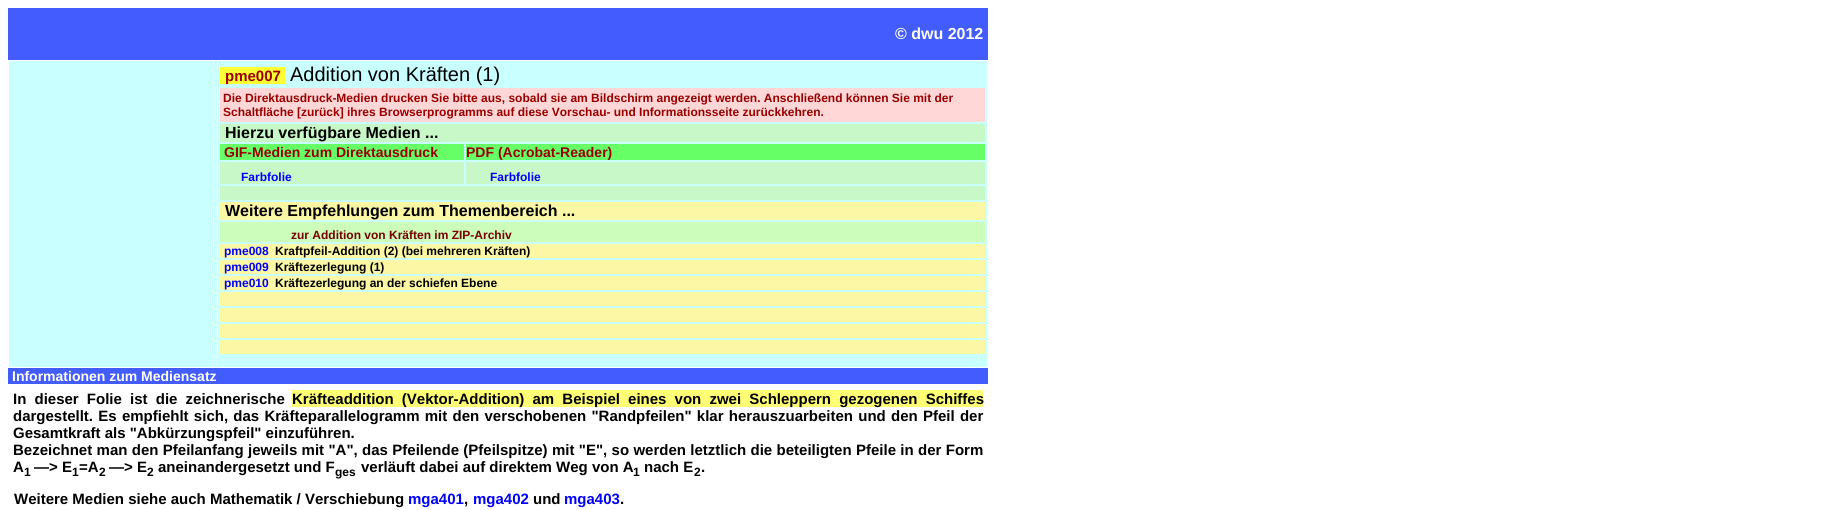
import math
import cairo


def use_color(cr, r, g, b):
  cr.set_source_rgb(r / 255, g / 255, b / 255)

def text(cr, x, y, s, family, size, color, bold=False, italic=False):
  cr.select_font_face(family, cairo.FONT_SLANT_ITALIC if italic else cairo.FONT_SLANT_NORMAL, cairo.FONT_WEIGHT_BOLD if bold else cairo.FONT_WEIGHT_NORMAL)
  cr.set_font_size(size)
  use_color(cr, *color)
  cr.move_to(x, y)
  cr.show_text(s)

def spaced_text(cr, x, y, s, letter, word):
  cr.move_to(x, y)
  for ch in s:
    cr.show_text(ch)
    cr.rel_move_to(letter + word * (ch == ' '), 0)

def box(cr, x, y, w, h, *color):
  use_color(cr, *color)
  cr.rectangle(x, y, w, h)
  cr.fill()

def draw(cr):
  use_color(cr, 255, 255, 255)
  cr.paint()
  box(cr, 8, 8, 980, 52, 66, 92, 253)
  box(cr, 9, 61, 204, 306, 202, 255, 255)
  box(cr, 214, 61, 3, 306, 202, 255, 255)
  box(cr, 218, 61, 769, 306, 202, 255, 255)
  box(cr, 220, 67, 65, 17, 255, 255, 51)
  box(cr, 220, 88, 765, 34, 255, 215, 215)
  box(cr, 220, 124, 765, 18, 201, 248, 200)
  box(cr, 220, 144, 244, 16, 102, 255, 102)
  box(cr, 466, 144, 519, 16, 102, 255, 102)
  box(cr, 220, 162, 244, 22, 201, 248, 200)
  box(cr, 466, 162, 519, 22, 201, 248, 200)
  box(cr, 220, 186, 765, 14, 201, 248, 200)
  box(cr, 220, 202, 765, 18, 251, 247, 164)
  box(cr, 220, 222, 765, 20, 204, 253, 187)
  box(cr, 220, 244, 765, 14, 251, 247, 164)
  box(cr, 220, 260, 765, 14, 251, 247, 164)
  box(cr, 220, 276, 765, 14, 251, 247, 164)
  box(cr, 220, 292, 765, 14, 251, 247, 164)
  box(cr, 220, 308, 765, 14, 251, 247, 164)
  box(cr, 220, 324, 765, 14, 251, 247, 164)
  box(cr, 220, 340, 765, 14, 251, 247, 164)
  box(cr, 8, 368, 980, 16, 66, 92, 253)
  box(cr, 292, 390, 691, 17, 255, 255, 117)
  text(cr, 895, 39, "© dwu 2012", "Liberation Sans", 16, (255, 255, 255), bold=True)
  text(cr, 225, 81, "pme007", "Liberation Sans", 15, (153, 0, 0), bold=True)
  text(cr, 290, 81, "Addition von Kräften (1)", "Liberation Sans", 20, (0, 0, 0))
  text(cr, 223, 102, "Die Direktausdruck-Medien drucken Sie bitte aus, sobald sie am Bildschirm angezeigt werden. Anschließend können Sie mit der", "Liberation Sans", 12, (153, 0, 0), bold=True)
  text(cr, 223, 116, "Schaltfläche [zurück] ihres Browserprogramms auf diese Vorschau- und Informationsseite zurückkehren.", "Liberation Sans", 12, (153, 0, 0), bold=True)
  text(cr, 225, 138, "Hierzu verfügbare Medien ...", "Liberation Sans", 16, (0, 0, 0), bold=True)
  text(cr, 224, 157, "GIF-Medien zum Direktausdruck", "Liberation Sans", 14, (153, 0, 0), bold=True)
  text(cr, 466, 157, "PDF (Acrobat-Reader)", "Liberation Sans", 14, (153, 0, 0), bold=True)
  text(cr, 241, 181, "Farbfolie", "Liberation Sans", 12, (0, 0, 255), bold=True)
  text(cr, 490, 181, "Farbfolie", "Liberation Sans", 12, (0, 0, 255), bold=True)
  text(cr, 225, 216, "Weitere Empfehlungen zum Themenbereich ...", "Liberation Sans", 16, (0, 0, 0), bold=True)
  text(cr, 291, 239, "zur Addition von Kräften im ZIP-Archiv", "Liberation Sans", 12, (119, 0, 0), bold=True)
  text(cr, 224, 255, "pme008", "Liberation Sans", 12, (0, 0, 255), bold=True)
  text(cr, 275, 255, "Kraftpfeil-Addition (2) (bei mehreren Kräften)", "Liberation Sans", 12, (0, 0, 0), bold=True)
  text(cr, 224, 271, "pme009", "Liberation Sans", 12, (0, 0, 255), bold=True)
  text(cr, 275, 271, "Kräftezerlegung (1)", "Liberation Sans", 12, (0, 0, 0), bold=True)
  text(cr, 224, 287, "pme010", "Liberation Sans", 12, (0, 0, 255), bold=True)
  text(cr, 275, 287, "Kräftezerlegung an der schiefen Ebene", "Liberation Sans", 12, (0, 0, 0), bold=True)
  text(cr, 12, 381, "Informationen zum Mediensatz", "Liberation Sans", 14, (255, 255, 255), bold=True)
  cr.set_font_size(15)
  use_color(cr, 0, 0, 0)
  spaced_text(cr, 13, 404, "In dieser Folie ist die zeichnerische", 0, 4)
  spaced_text(cr, 292, 404, "Kräfteaddition (Vektor-Addition) am Beispiel eines von zwei Schleppern gezogenen Schiffes", 0, 4)
  spaced_text(cr, 13, 421, "dargestellt. Es empfiehlt sich, das Kräfteparallelogramm mit den verschobenen \"Randpfeilen\" klar herauszuarbeiten und den Pfeil der", 0, 1.1)
  text(cr, 13, 438, "Gesamtkraft als \"Abkürzungspfeil\" einzuführen.", "Liberation Sans", 15, (0, 0, 0), bold=True)
  spaced_text(cr, 13, 455, "Bezeichnet man den Pfeilanfang jeweils mit \"A\", das Pfeilende (Pfeilspitze) mit \"E\", so werden letztlich die beteiligten Pfeile in der Form", 0, 0.2)
  text(cr, 13, 472, "A", "Liberation Sans", 15, (0, 0, 0), bold=True)
  text(cr, 24, 476, "1", "Liberation Sans", 12, (0, 0, 0), bold=True)
  text(cr, 34, 472, "—> E", "Liberation Sans", 15, (0, 0, 0), bold=True)
  text(cr, 72, 476, "1", "Liberation Sans", 12, (0, 0, 0), bold=True)
  text(cr, 79, 472, "=A", "Liberation Sans", 15, (0, 0, 0), bold=True)
  text(cr, 99, 476, "2", "Liberation Sans", 12, (0, 0, 0), bold=True)
  text(cr, 109, 472, "—> E", "Liberation Sans", 15, (0, 0, 0), bold=True)
  text(cr, 147, 476, "2", "Liberation Sans", 12, (0, 0, 0), bold=True)
  text(cr, 158, 472, "aneinandergesetzt und F", "Liberation Sans", 15, (0, 0, 0), bold=True)
  text(cr, 335, 476, "ges", "Liberation Sans", 12, (0, 0, 0), bold=True)
  text(cr, 361, 472, "verläuft dabei auf direktem Weg von A", "Liberation Sans", 15, (0, 0, 0), bold=True)
  text(cr, 633, 476, "1", "Liberation Sans", 12, (0, 0, 0), bold=True)
  text(cr, 644, 472, "nach E", "Liberation Sans", 15, (0, 0, 0), bold=True)
  text(cr, 694, 476, "2", "Liberation Sans", 12, (0, 0, 0), bold=True)
  text(cr, 701, 472, ".", "Liberation Sans", 15, (0, 0, 0), bold=True)
  text(cr, 14, 504, "Weitere Medien siehe auch Mathematik / Verschiebung", "Liberation Sans", 15, (0, 0, 0), bold=True)
  text(cr, 408, 504, "mga401", "Liberation Sans", 15, (0, 0, 255), bold=True)
  text(cr, 464, 504, ",", "Liberation Sans", 15, (0, 0, 0), bold=True)
  text(cr, 473, 504, "mga402", "Liberation Sans", 15, (0, 0, 255), bold=True)
  text(cr, 533, 504, "und", "Liberation Sans", 15, (0, 0, 0), bold=True)
  text(cr, 564, 504, "mga403", "Liberation Sans", 15, (0, 0, 255), bold=True)
  text(cr, 620, 504, ".", "Liberation Sans", 15, (0, 0, 0), bold=True)


surface = cairo.ImageSurface(cairo.FORMAT_RGB24, 1828, 510)
cr = cairo.Context(surface)
options = cairo.FontOptions()
options.set_hint_metrics(cairo.HINT_METRICS_OFF)
options.set_hint_style(cairo.HINT_STYLE_NONE)
cr.set_font_options(options)
cr.set_miter_limit(4)
draw(cr)
surface.write_to_png("out.png")
